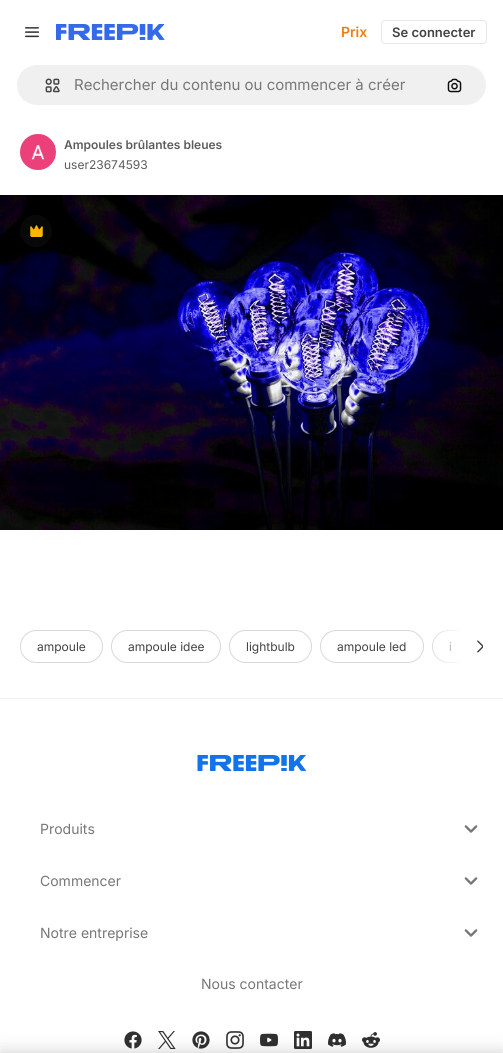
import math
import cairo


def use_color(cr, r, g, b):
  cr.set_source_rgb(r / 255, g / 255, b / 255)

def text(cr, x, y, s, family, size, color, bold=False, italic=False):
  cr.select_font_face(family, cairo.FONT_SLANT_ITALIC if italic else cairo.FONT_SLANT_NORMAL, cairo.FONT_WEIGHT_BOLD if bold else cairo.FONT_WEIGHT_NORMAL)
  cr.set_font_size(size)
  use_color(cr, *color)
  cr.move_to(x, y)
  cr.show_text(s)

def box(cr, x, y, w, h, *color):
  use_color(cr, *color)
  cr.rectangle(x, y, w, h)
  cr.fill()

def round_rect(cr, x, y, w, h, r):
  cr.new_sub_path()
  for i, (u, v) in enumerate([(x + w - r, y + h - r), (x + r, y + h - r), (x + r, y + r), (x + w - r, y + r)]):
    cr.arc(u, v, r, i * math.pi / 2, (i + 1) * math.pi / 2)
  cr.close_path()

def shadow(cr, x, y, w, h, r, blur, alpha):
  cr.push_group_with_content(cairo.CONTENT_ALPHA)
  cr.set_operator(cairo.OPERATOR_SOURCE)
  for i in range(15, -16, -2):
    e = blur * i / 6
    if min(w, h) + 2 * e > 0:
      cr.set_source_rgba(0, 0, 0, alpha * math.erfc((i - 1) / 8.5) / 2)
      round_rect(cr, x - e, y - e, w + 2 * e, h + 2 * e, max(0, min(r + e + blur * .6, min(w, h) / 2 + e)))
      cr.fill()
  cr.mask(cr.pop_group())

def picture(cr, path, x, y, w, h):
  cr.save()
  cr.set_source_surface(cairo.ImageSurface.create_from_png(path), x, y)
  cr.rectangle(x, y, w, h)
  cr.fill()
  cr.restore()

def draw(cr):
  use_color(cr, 255, 255, 255)
  cr.paint()
  picture(cr, "img_01.png", 25, 27, 14, 11)
  picture(cr, "img_02.png", 56, 24, 109, 16)
  round_rect(cr, 381.5, 20.5, 105, 23, 3.5)
  use_color(cr, 231, 231, 231)
  cr.set_line_width(1)
  cr.stroke()
  use_color(cr, 240, 240, 240)
  round_rect(cr, 16.5, 64.5, 470, 41, 20.5)
  cr.fill_preserve()
  use_color(cr, 255, 255, 255)
  cr.stroke()
  picture(cr, "img_03.png", 45, 78, 15, 15)
  picture(cr, "img_04.png", 447, 78, 15, 15)
  picture(cr, "img_05.png", 20, 134, 36, 36)
  picture(cr, "img_06.png", 0, 195, 503, 335)
  use_color(cr, 8, 8, 8)
  cr.arc(36, 231, 16, 0, 2 * math.pi)
  cr.fill()
  picture(cr, "img_07.png", 30, 225, 13, 12)
  round_rect(cr, 20.5, 630.5, 82, 32, 16)
  use_color(cr, 216, 216, 216)
  cr.stroke()
  round_rect(cr, 111.5, 630.5, 109, 32, 16)
  cr.stroke()
  round_rect(cr, 229.5, 630.5, 82, 32, 16)
  cr.stroke()
  round_rect(cr, 320.5, 630.5, 103, 32, 16)
  cr.stroke()
  cr.save()
  cr.rectangle(20, 630, 463, 33)
  cr.clip()
  round_rect(cr, 432.5, 630.5, 57, 32, 16)
  cr.stroke()
  cr.restore()
  box(cr, 463, 630, 20, 33, 255, 255, 255)
  picture(cr, "img_08.png", 477, 640, 6, 13)
  box(cr, 0, 698, 503, 1, 240, 240, 240)
  picture(cr, "img_09.png", 197, 755, 109, 16)
  picture(cr, "img_10.png", 464, 825, 14, 8)
  picture(cr, "img_10.png", 464, 877, 14, 8)
  picture(cr, "img_10.png", 464, 929, 14, 8)
  picture(cr, "img_11.png", 124, 1031, 18, 18)
  picture(cr, "img_12.png", 158, 1031, 18, 18)
  picture(cr, "img_13.png", 192, 1031, 18, 18)
  picture(cr, "img_14.png", 226, 1031, 18, 18)
  picture(cr, "img_15.png", 260, 1033, 18, 14)
  picture(cr, "img_16.png", 294, 1031, 18, 18)
  picture(cr, "img_17.png", 328, 1033, 18, 14)
  picture(cr, "img_18.png", 362, 1032, 18, 16)
  use_color(cr, 0, 0, 0)
  shadow(cr, 0, 1053, 503, 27, 0, 9, 0.2)
  text(cr, 341, 37, "Prix", "Inter SemiBold", 14, (234, 126, 17))
  text(cr, 392, 37, "Se connecter", "Inter SemiBold", 13, (66, 66, 66))
  text(cr, 74, 90, "Rechercher du contenu ou commencer à créer", "Inter", 15, (119, 119, 119))
  text(cr, 64, 149, "Ampoules brûlantes bleues", "Inter SemiBold", 12, (92, 92, 92))
  text(cr, 64, 169, "user23674593", "Inter", 12, (92, 92, 92))
  text(cr, 37, 651, "ampoule", "Inter", 12, (66, 66, 66))
  text(cr, 128, 651, "ampoule idee", "Inter", 12, (66, 66, 66))
  text(cr, 246, 651, "lightbulb", "Inter", 12, (66, 66, 66))
  text(cr, 337, 651, "ampoule led", "Inter", 12, (66, 66, 66))
  text(cr, 449, 651, "i", "Inter", 12, (66, 66, 66))
  gradient = cairo.LinearGradient(463, 647, 428, 647)
  gradient.add_color_stop_rgba(0, 1, 1, 1, 1)
  gradient.add_color_stop_rgba(1, 1, 1, 1, 0)
  cr.set_source(gradient)
  cr.rectangle(432, 630, 31, 33)
  cr.fill()
  text(cr, 40, 834, "Produits", "Inter", 14, (119, 119, 119))
  text(cr, 40, 886, "Commencer", "Inter", 14, (119, 119, 119))
  text(cr, 40, 938, "Notre entreprise", "Inter", 14, (119, 119, 119))
  text(cr, 201, 989, "Nous contacter", "Inter", 14, (119, 119, 119))


surface = cairo.ImageSurface(cairo.FORMAT_RGB24, 503, 1053)
cr = cairo.Context(surface)
options = cairo.FontOptions()
options.set_hint_metrics(cairo.HINT_METRICS_OFF)
options.set_hint_style(cairo.HINT_STYLE_NONE)
cr.set_font_options(options)
cr.set_miter_limit(4)
draw(cr)
surface.write_to_png("out.png")
